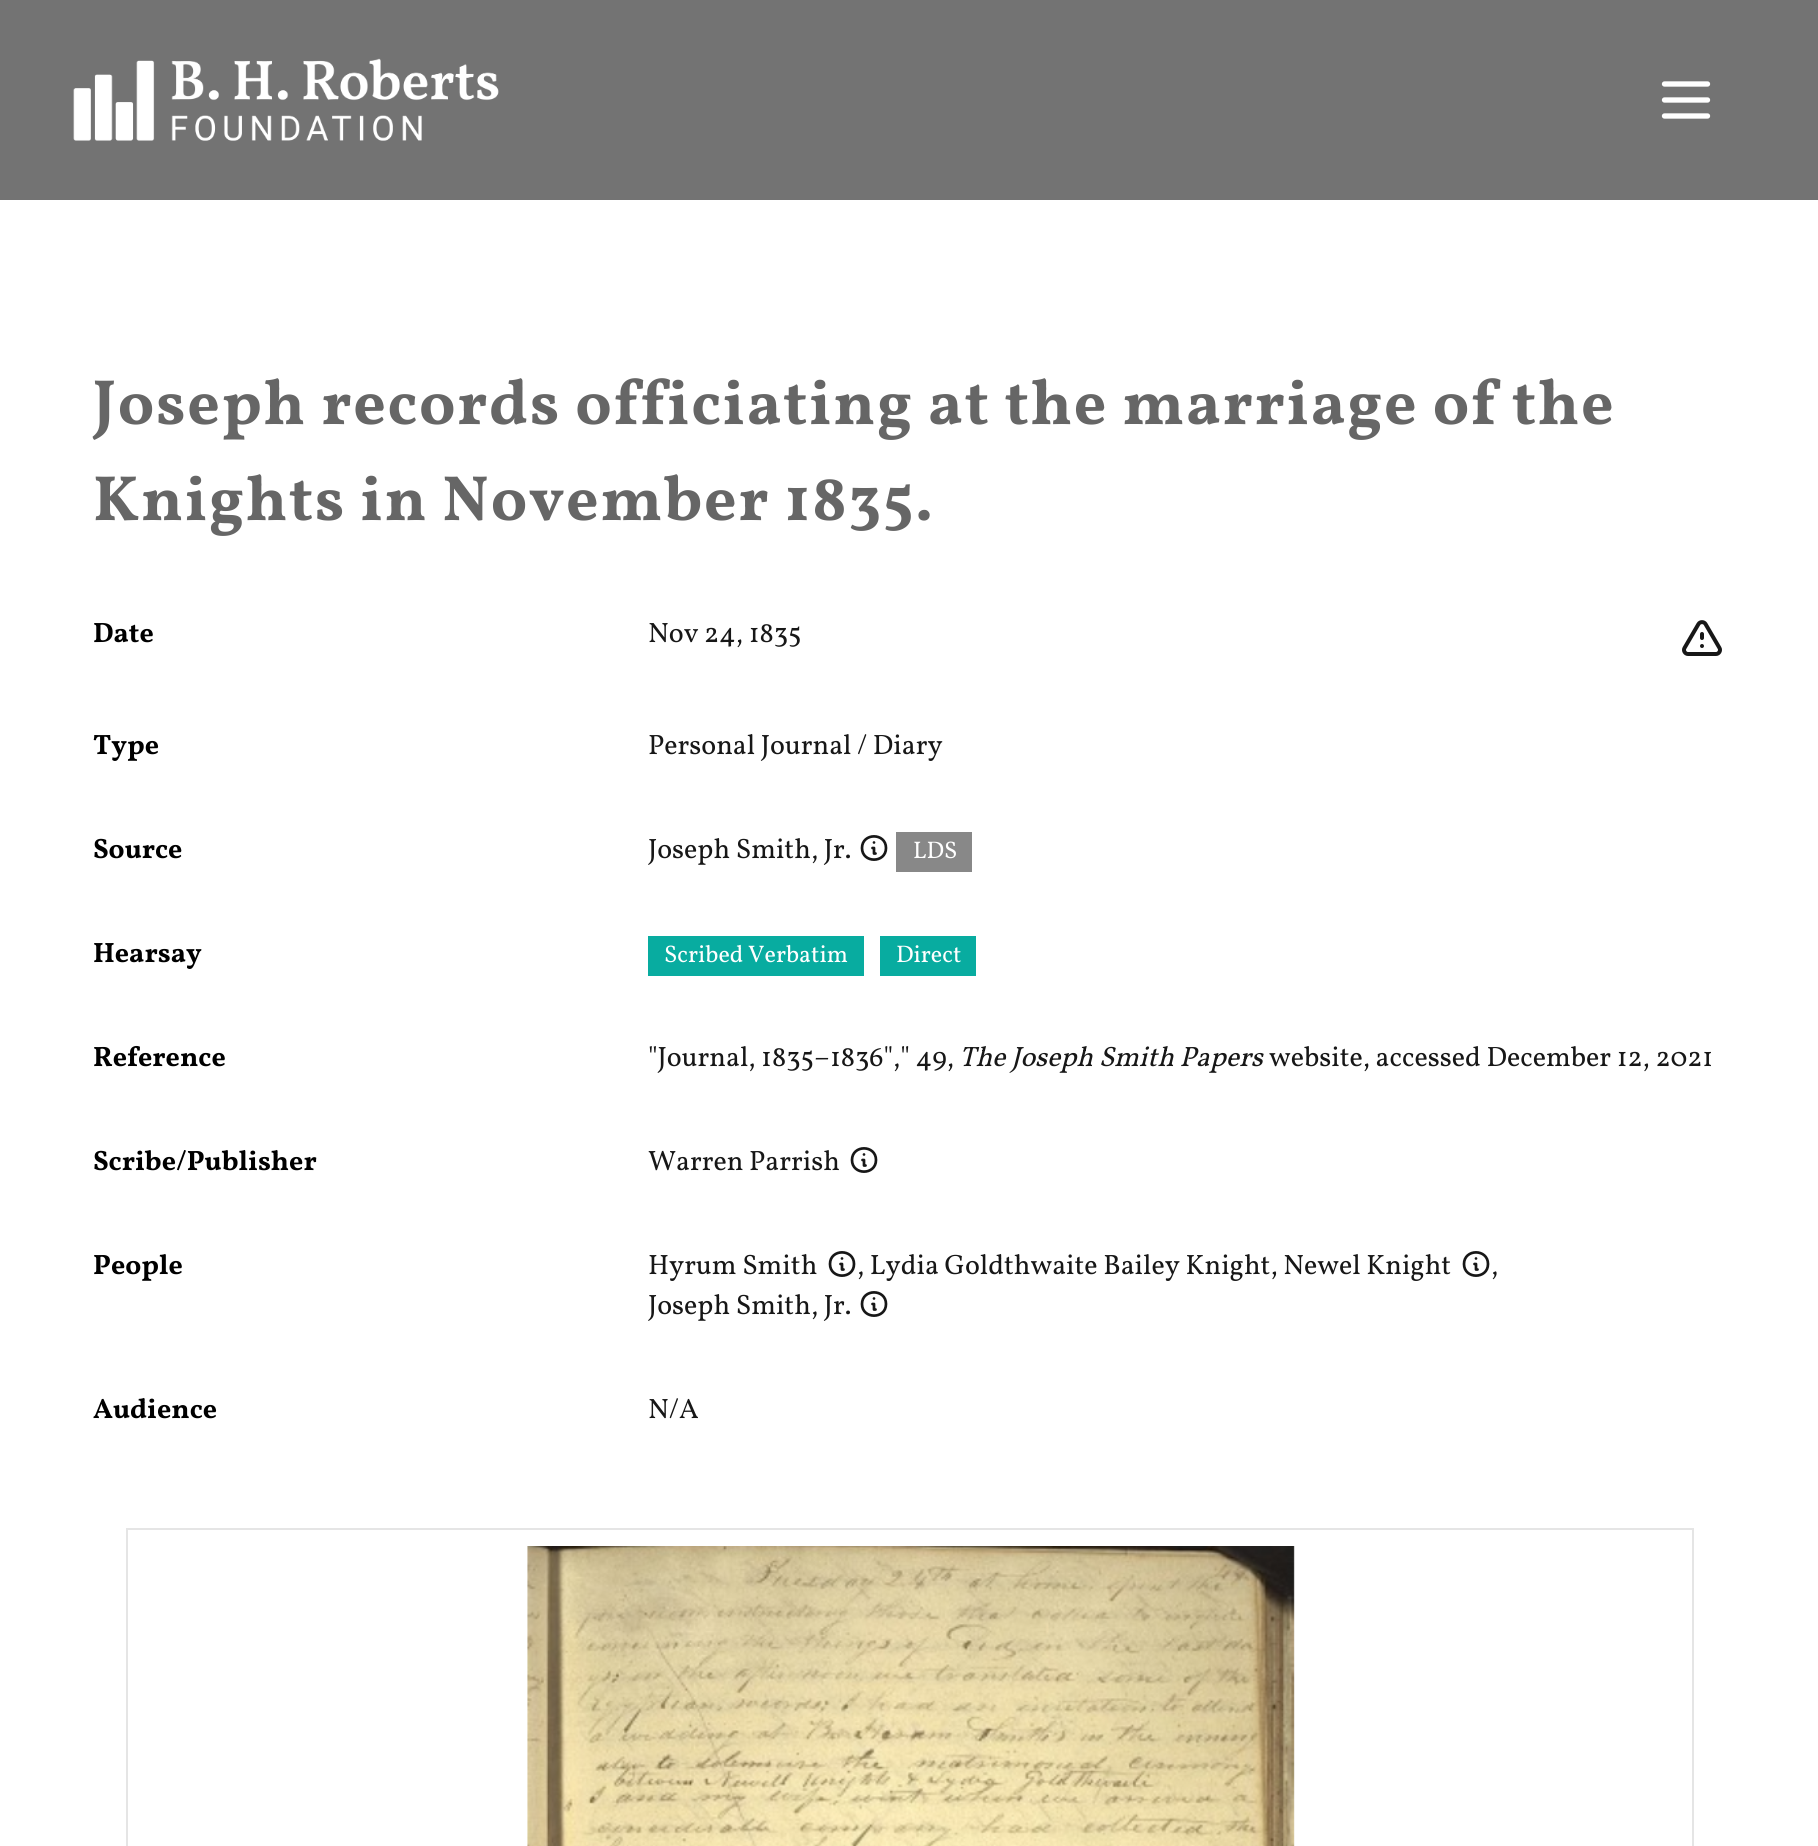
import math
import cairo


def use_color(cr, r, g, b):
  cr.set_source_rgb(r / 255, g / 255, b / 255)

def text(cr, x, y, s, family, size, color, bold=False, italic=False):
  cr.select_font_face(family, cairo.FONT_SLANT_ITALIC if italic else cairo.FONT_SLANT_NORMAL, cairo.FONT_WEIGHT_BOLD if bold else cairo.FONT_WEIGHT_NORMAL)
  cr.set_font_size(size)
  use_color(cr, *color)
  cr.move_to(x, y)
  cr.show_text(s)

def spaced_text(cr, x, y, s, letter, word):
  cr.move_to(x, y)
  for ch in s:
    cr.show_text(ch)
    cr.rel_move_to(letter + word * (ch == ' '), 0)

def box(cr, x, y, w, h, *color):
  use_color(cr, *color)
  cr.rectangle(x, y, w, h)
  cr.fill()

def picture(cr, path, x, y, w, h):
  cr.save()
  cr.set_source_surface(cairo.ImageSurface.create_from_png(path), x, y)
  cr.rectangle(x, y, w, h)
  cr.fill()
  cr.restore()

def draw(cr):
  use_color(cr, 255, 255, 255)
  cr.paint()
  box(cr, 0, 0, 1818, 200, 115, 115, 115)
  picture(cr, "img_01.png", 73, 58, 426, 83)
  cr.new_path()
  cr.move_to(1664.5, 84)
  cr.line_to(1707.5, 84)
  cr.move_to(1664.5, 100)
  cr.line_to(1707.5, 100)
  cr.move_to(1664.5, 116)
  cr.line_to(1707.5, 116)
  use_color(cr, 255, 255, 255)
  cr.set_line_width(5.3)
  cr.set_line_cap(cairo.LINE_CAP_ROUND)
  cr.set_line_join(cairo.LINE_JOIN_ROUND)
  cr.stroke()
  cr.new_path()
  cr.move_to(1702, 634)
  cr.line_to(1702, 638)
  cr.move_to(1702, 646)
  cr.line_to(1702, 646)
  cr.move_to(1688, 654)
  cr.line_to(1716, 654)
  cr.curve_to(1719, 654, 1721, 650.5, 1719.5, 648)
  cr.line_to(1705.5, 624)
  cr.curve_to(1704, 621.5, 1700, 621.5, 1698.5, 624)
  cr.line_to(1684.5, 648)
  cr.curve_to(1683, 650.5, 1685, 654, 1688, 654)
  cr.close_path()
  use_color(cr, 23, 23, 23)
  cr.set_line_width(4)
  cr.stroke()
  cr.new_path()
  cr.move_to(875.5, 853.5)
  cr.line_to(874, 853.5)
  cr.line_to(874, 848)
  cr.line_to(872.5, 848)
  cr.move_to(874, 842.5)
  cr.line_to(874, 842.5)
  cr.move_to(886, 848)
  cr.curve_to(886, 863.5, 862, 863.5, 862, 848)
  cr.curve_to(862, 832.5, 886, 832.5, 886, 848)
  cr.close_path()
  cr.set_line_width(2.7)
  cr.stroke()
  box(cr, 896, 832, 76, 40, 136, 136, 136)
  box(cr, 648, 936, 216, 40, 8, 172, 160)
  box(cr, 880, 936, 96, 40, 8, 172, 160)
  cr.new_path()
  cr.move_to(865.5, 1165.5)
  cr.line_to(864, 1165.5)
  cr.line_to(864, 1160)
  cr.line_to(862.5, 1160)
  cr.move_to(864, 1154.5)
  cr.line_to(864, 1154.5)
  cr.move_to(876, 1160)
  cr.curve_to(876, 1175.5, 852, 1175.5, 852, 1160)
  cr.curve_to(852, 1144.5, 876, 1144.5, 876, 1160)
  cr.close_path()
  use_color(cr, 23, 23, 23)
  cr.stroke()
  cr.new_path()
  cr.move_to(843.5, 1269.5)
  cr.line_to(842, 1269.5)
  cr.line_to(842, 1264)
  cr.line_to(840.5, 1264)
  cr.move_to(842, 1258.5)
  cr.line_to(842, 1258.5)
  cr.move_to(854, 1264)
  cr.curve_to(854, 1279.5, 830, 1279.5, 830, 1264)
  cr.curve_to(830, 1248.5, 854, 1248.5, 854, 1264)
  cr.close_path()
  cr.stroke()
  cr.new_path()
  cr.move_to(1477.5, 1269.5)
  cr.line_to(1476, 1269.5)
  cr.line_to(1476, 1264)
  cr.line_to(1474.5, 1264)
  cr.move_to(1476, 1258.5)
  cr.line_to(1476, 1258.5)
  cr.move_to(1488, 1264)
  cr.curve_to(1488, 1279.5, 1464, 1279.5, 1464, 1264)
  cr.curve_to(1464, 1248.5, 1488, 1248.5, 1488, 1264)
  cr.close_path()
  cr.stroke()
  cr.new_path()
  cr.move_to(875.5, 1309.5)
  cr.line_to(874, 1309.5)
  cr.line_to(874, 1304)
  cr.line_to(872.5, 1304)
  cr.move_to(874, 1298.5)
  cr.line_to(874, 1298.5)
  cr.move_to(886, 1304)
  cr.curve_to(886, 1319.5, 862, 1319.5, 862, 1304)
  cr.curve_to(862, 1288.5, 886, 1288.5, 886, 1304)
  cr.close_path()
  cr.stroke()
  cr.rectangle(127, 1529, 1566, 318)
  use_color(cr, 229, 229, 229)
  cr.set_line_width(2)
  cr.set_line_cap(cairo.LINE_CAP_BUTT)
  cr.set_line_join(cairo.LINE_JOIN_MITER)
  cr.stroke()
  picture(cr, "img_02.png", 527, 1546, 768, 300)
  cr.select_font_face("Vollkorn", cairo.FONT_SLANT_NORMAL, cairo.FONT_WEIGHT_BOLD)
  cr.set_font_size(64)
  use_color(cr, 102, 102, 102)
  spaced_text(cr, 93, 424, "Joseph records officiating at the marriage of the", 1.6, 0)
  spaced_text(cr, 93, 520, "Knights in November 1835.", 1.6, 0)
  text(cr, 93, 642, "Date", "Vollkorn", 28, (0, 0, 0), bold=True)
  text(cr, 648, 642, "Nov 24, 1835", "Vollkorn", 28, (23, 23, 23))
  text(cr, 93, 754, "Type", "Vollkorn", 28, (0, 0, 0), bold=True)
  text(cr, 648, 754, "Personal Journal / Diary", "Vollkorn", 28, (23, 23, 23))
  text(cr, 93, 858, "Source", "Vollkorn", 28, (0, 0, 0), bold=True)
  text(cr, 648, 858, "Joseph Smith, Jr.", "Vollkorn", 28, (23, 23, 23))
  text(cr, 913, 858, "LDS", "Vollkorn", 24, (255, 255, 255))
  text(cr, 93, 962, "Hearsay", "Vollkorn", 28, (0, 0, 0), bold=True)
  text(cr, 664, 962, "Scribed Verbatim", "Vollkorn", 24, (255, 255, 255))
  text(cr, 896, 962, "Direct", "Vollkorn", 24, (255, 255, 255))
  text(cr, 93, 1066, "Reference", "Vollkorn", 28, (0, 0, 0), bold=True)
  text(cr, 648, 1066, "\"Journal, 1835–1836\",\" 49,", "Vollkorn", 28, (23, 23, 23))
  text(cr, 959, 1066, "The Joseph Smith Papers", "Vollkorn", 28, (23, 23, 23), italic=True)
  text(cr, 1269, 1066, "website, accessed December 12, 2021", "Vollkorn", 28, (23, 23, 23))
  text(cr, 93, 1170, "Scribe/Publisher", "Vollkorn", 28, (0, 0, 0), bold=True)
  text(cr, 648, 1170, "Warren Parrish", "Vollkorn", 28, (23, 23, 23))
  text(cr, 93, 1274, "People", "Vollkorn", 28, (0, 0, 0), bold=True)
  text(cr, 648, 1274, "Hyrum Smith", "Vollkorn", 28, (23, 23, 23))
  text(cr, 857, 1274, ", Lydia Goldthwaite Bailey Knight, Newel Knight", "Vollkorn", 28, (23, 23, 23))
  text(cr, 1491, 1274, ",", "Vollkorn", 28, (23, 23, 23))
  text(cr, 648, 1314, "Joseph Smith, Jr.", "Vollkorn", 28, (23, 23, 23))
  text(cr, 93, 1418, "Audience", "Vollkorn", 28, (0, 0, 0), bold=True)
  text(cr, 648, 1418, "N/A", "Vollkorn", 28, (23, 23, 23))


surface = cairo.ImageSurface(cairo.FORMAT_RGB24, 1818, 1846)
cr = cairo.Context(surface)
options = cairo.FontOptions()
options.set_hint_metrics(cairo.HINT_METRICS_OFF)
options.set_hint_style(cairo.HINT_STYLE_NONE)
cr.set_font_options(options)
cr.set_miter_limit(4)
draw(cr)
surface.write_to_png("out.png")
